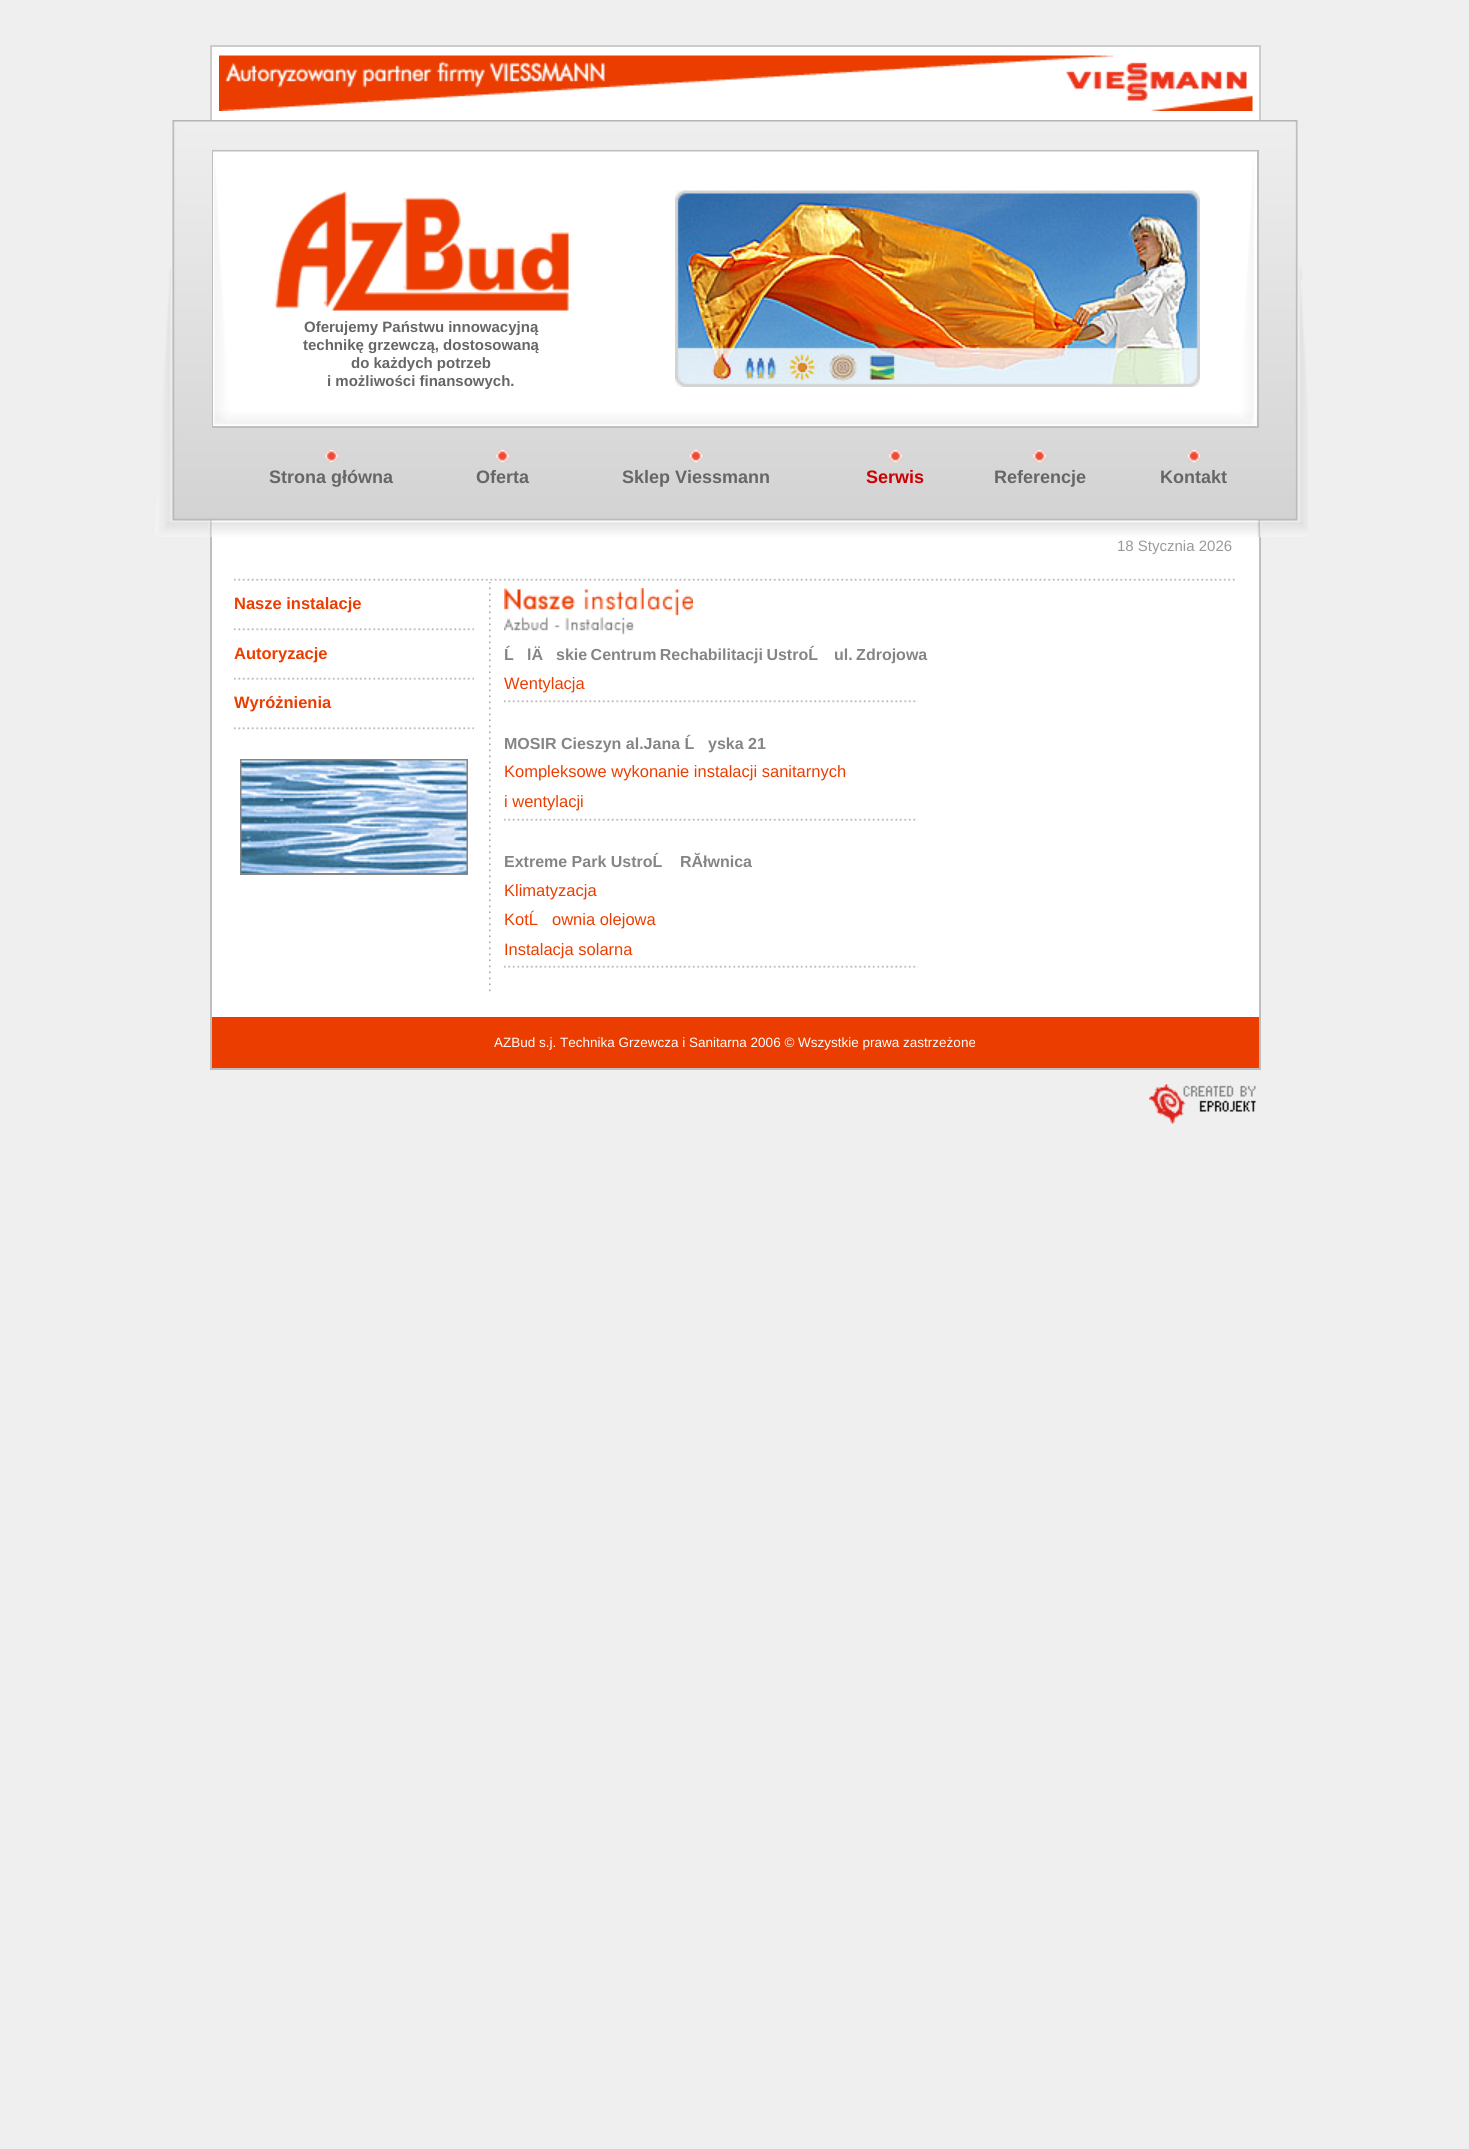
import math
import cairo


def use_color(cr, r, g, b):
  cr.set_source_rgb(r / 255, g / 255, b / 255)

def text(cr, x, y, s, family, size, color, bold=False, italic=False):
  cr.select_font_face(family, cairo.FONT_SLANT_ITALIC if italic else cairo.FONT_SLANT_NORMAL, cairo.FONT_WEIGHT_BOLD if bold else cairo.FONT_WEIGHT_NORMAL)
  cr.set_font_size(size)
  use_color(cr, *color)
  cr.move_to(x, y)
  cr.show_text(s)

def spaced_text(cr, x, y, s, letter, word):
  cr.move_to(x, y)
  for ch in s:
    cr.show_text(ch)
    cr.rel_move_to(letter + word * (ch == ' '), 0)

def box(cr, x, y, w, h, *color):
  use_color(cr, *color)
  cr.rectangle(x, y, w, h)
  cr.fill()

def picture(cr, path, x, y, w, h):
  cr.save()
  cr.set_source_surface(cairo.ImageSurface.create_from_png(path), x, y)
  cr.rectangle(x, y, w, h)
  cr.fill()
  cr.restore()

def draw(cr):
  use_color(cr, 239, 239, 239)
  cr.paint()
  box(cr, 212, 47, 1047, 73, 255, 255, 255)
  box(cr, 210, 45, 1050, 2, 204, 204, 204)
  box(cr, 1259, 45, 2, 75, 204, 204, 204)
  box(cr, 210, 45, 2, 75, 204, 204, 204)
  picture(cr, "img_01.png", 219, 55, 1034, 56)
  picture(cr, "img_02.png", 155, 120, 1153, 417)
  cr.rectangle(213, 151, 1045, 276)
  use_color(cr, 190, 190, 190)
  cr.stroke()
  picture(cr, "img_03.png", 213, 151, 1044, 275)
  picture(cr, "img_04.png", 273, 191, 296, 120)
  picture(cr, "img_05.png", 675, 190, 525, 197)
  picture(cr, "img_06.png", 325, 450, 13, 12)
  picture(cr, "img_06.png", 496, 450, 13, 12)
  picture(cr, "img_07.png", 690, 450, 12, 12)
  picture(cr, "img_06.png", 889, 450, 13, 12)
  picture(cr, "img_06.png", 1033, 450, 13, 12)
  picture(cr, "img_08.png", 1188, 450, 12, 12)
  box(cr, 212, 537, 1047, 480, 255, 255, 255)
  box(cr, 1259, 537, 2, 533, 190, 190, 190)
  box(cr, 210, 537, 2, 533, 190, 190, 190)
  picture(cr, "img_09.png", 234, 578, 1001, 3)
  picture(cr, "img_10.png", 234, 628, 240, 3)
  picture(cr, "img_11.png", 234, 677, 240, 3)
  picture(cr, "img_10.png", 234, 727, 240, 3)
  cr.rectangle(241, 760, 226, 114)
  use_color(cr, 133, 133, 133)
  cr.stroke()
  picture(cr, "img_12.png", 241, 760, 226, 113)
  picture(cr, "img_13.png", 489, 582, 2, 410)
  picture(cr, "img_14.png", 504, 588, 189, 47)
  picture(cr, "img_15.png", 504, 700, 414, 3)
  picture(cr, "img_16.png", 504, 818, 414, 3)
  picture(cr, "img_16.png", 504, 965, 414, 3)
  box(cr, 212, 1017, 1047, 51, 235, 61, 0)
  box(cr, 212, 1068, 1047, 2, 190, 190, 190)
  picture(cr, "img_17.png", 1149, 1084, 107, 40)
  text(cr, 304, 332, "Oferujemy Państwu innowacyjną", "Liberation Sans", 15, (102, 102, 102), bold=True)
  text(cr, 303, 350, "technikę grzewczą, dostosowaną", "Liberation Sans", 15, (102, 102, 102), bold=True)
  text(cr, 351, 368, "do każdych potrzeb", "Liberation Sans", 15, (102, 102, 102), bold=True)
  text(cr, 327, 386, "i możliwości finansowych.", "Liberation Sans", 15, (102, 102, 102), bold=True)
  text(cr, 269, 483, "Strona główna", "Liberation Sans", 18, (102, 102, 102), bold=True)
  text(cr, 476, 483, "Oferta", "Liberation Sans", 18, (102, 102, 102), bold=True)
  text(cr, 622, 483, "Sklep Viessmann", "Liberation Sans", 18, (102, 102, 102), bold=True)
  text(cr, 866, 483, "Serwis", "Liberation Sans", 18, (204, 0, 0), bold=True)
  text(cr, 994, 483, "Referencje", "Liberation Sans", 18, (102, 102, 102), bold=True)
  text(cr, 1160, 483, "Kontakt", "Liberation Sans", 18, (102, 102, 102), bold=True)
  text(cr, 1117, 551, "18 Stycznia 2026", "Liberation Sans", 15, (153, 153, 153))
  text(cr, 234, 609, "Nasze instalacje", "Liberation Sans", 16.5, (235, 61, 0), bold=True)
  text(cr, 234, 659, "Autoryzacje", "Liberation Sans", 16.5, (235, 61, 0), bold=True)
  text(cr, 234, 708, "Wyróżnienia", "Liberation Sans", 16.5, (235, 61, 0), bold=True)
  text(cr, 504, 660, "Ĺ", "Liberation Sans", 16, (133, 133, 133), bold=True)
  text(cr, 527, 660, "lÄ", "Liberation Sans", 16, (133, 133, 133), bold=True)
  spaced_text(cr, 556, 660, "skie Centrum Rechabilitacji UstroĹ", 0, -1)
  spaced_text(cr, 834, 660, "ul. Zdrojowa", 0, -1)
  text(cr, 504, 689, "Wentylacja", "Liberation Sans", 16.5, (235, 61, 0))
  text(cr, 504, 749, "MOSIR Cieszyn al.Jana Ĺ", "Liberation Sans", 16, (133, 133, 133), bold=True)
  text(cr, 708, 749, "yska 21", "Liberation Sans", 16, (133, 133, 133), bold=True)
  text(cr, 504, 777, "Kompleksowe wykonanie instalacji sanitarnych", "Liberation Sans", 16.5, (235, 61, 0))
  text(cr, 504, 807, "i wentylacji", "Liberation Sans", 16.5, (235, 61, 0))
  text(cr, 504, 867, "Extreme Park UstroĹ", "Liberation Sans", 16, (133, 133, 133), bold=True)
  text(cr, 680, 867, "RĂłwnica", "Liberation Sans", 16, (133, 133, 133), bold=True)
  text(cr, 504, 896, "Klimatyzacja", "Liberation Sans", 16.5, (235, 61, 0))
  text(cr, 504, 925, "KotĹ", "Liberation Sans", 16.5, (235, 61, 0))
  text(cr, 552, 925, "ownia olejowa", "Liberation Sans", 16.5, (235, 61, 0))
  text(cr, 504, 955, "Instalacja solarna", "Liberation Sans", 16.5, (235, 61, 0))
  text(cr, 494, 1047, "AZBud s.j. Technika Grzewcza i Sanitarna 2006 © Wszystkie prawa zastrzeżone", "Liberation Sans", 13.5, (255, 255, 255))


surface = cairo.ImageSurface(cairo.FORMAT_RGB24, 1469, 2149)
cr = cairo.Context(surface)
options = cairo.FontOptions()
options.set_hint_metrics(cairo.HINT_METRICS_OFF)
options.set_hint_style(cairo.HINT_STYLE_NONE)
cr.set_font_options(options)
cr.set_miter_limit(4)
draw(cr)
surface.write_to_png("out.png")
